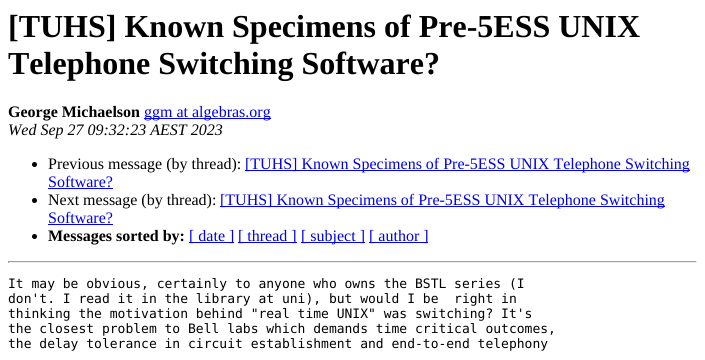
import math
import cairo


def use_color(cr, r, g, b):
  cr.set_source_rgb(r / 255, g / 255, b / 255)

def text(cr, x, y, s, family, size, color, bold=False, italic=False):
  cr.select_font_face(family, cairo.FONT_SLANT_ITALIC if italic else cairo.FONT_SLANT_NORMAL, cairo.FONT_WEIGHT_BOLD if bold else cairo.FONT_WEIGHT_NORMAL)
  cr.set_font_size(size)
  use_color(cr, *color)
  cr.move_to(x, y)
  cr.show_text(s)

def box(cr, x, y, w, h, *color):
  use_color(cr, *color)
  cr.rectangle(x, y, w, h)
  cr.fill()

def draw(cr):
  use_color(cr, 255, 255, 255)
  cr.paint()
  box(cr, 144, 118, 127, 1, 0, 0, 238)
  use_color(cr, 0, 0, 0)
  cr.arc(34.5, 164.5, 2.5, 0, 2 * math.pi)
  cr.fill()
  box(cr, 245, 170, 445, 1, 0, 0, 238)
  box(cr, 48, 188, 65, 1, 0, 0, 238)
  use_color(cr, 0, 0, 0)
  cr.arc(34.5, 200.5, 2.5, 0, 2 * math.pi)
  cr.fill()
  box(cr, 220, 206, 445, 1, 0, 0, 238)
  box(cr, 48, 224, 65, 1, 0, 0, 238)
  use_color(cr, 0, 0, 0)
  cr.arc(34.5, 236.5, 2.5, 0, 2 * math.pi)
  cr.fill()
  box(cr, 189, 242, 45, 1, 0, 0, 238)
  box(cr, 238, 242, 59, 1, 0, 0, 238)
  box(cr, 301, 242, 64, 1, 0, 0, 238)
  box(cr, 369, 242, 59, 1, 0, 0, 238)
  box(cr, 8, 261, 689, 1, 159, 159, 159)
  box(cr, 696, 261, 1, 2, 238, 238, 238)
  box(cr, 8, 262, 689, 1, 238, 238, 238)
  box(cr, 8, 261, 1, 2, 159, 159, 159)
  text(cr, 8, 37, "[TUHS] Known Specimens of Pre-5ESS UNIX", "Liberation Serif", 32, (0, 0, 0), bold=True)
  text(cr, 8, 74, "Telephone Switching Software?", "Liberation Serif", 32, (0, 0, 0), bold=True)
  text(cr, 8, 117, "George Michaelson", "Liberation Serif", 16, (0, 0, 0), bold=True)
  text(cr, 144, 117, "ggm at algebras.org", "Liberation Serif", 16, (0, 0, 238))
  text(cr, 8, 135, "Wed Sep 27 09:32:23 AEST 2023", "Liberation Serif", 16, (0, 0, 0), italic=True)
  text(cr, 48, 169, "Previous message (by thread):", "Liberation Serif", 16, (0, 0, 0))
  text(cr, 245, 169, "[TUHS] Known Specimens of Pre-5ESS UNIX Telephone Switching", "Liberation Serif", 16, (0, 0, 238))
  text(cr, 48, 187, "Software?", "Liberation Serif", 16, (0, 0, 238))
  text(cr, 48, 205, "Next message (by thread):", "Liberation Serif", 16, (0, 0, 0))
  text(cr, 220, 205, "[TUHS] Known Specimens of Pre-5ESS UNIX Telephone Switching", "Liberation Serif", 16, (0, 0, 238))
  text(cr, 48, 223, "Software?", "Liberation Serif", 16, (0, 0, 238))
  text(cr, 48, 241, "Messages sorted by:", "Liberation Serif", 16, (0, 0, 0), bold=True)
  text(cr, 189, 241, "[ date ]", "Liberation Serif", 16, (0, 0, 238))
  text(cr, 238, 241, "[ thread ]", "Liberation Serif", 16, (0, 0, 238))
  text(cr, 301, 241, "[ subject ]", "Liberation Serif", 16, (0, 0, 238))
  text(cr, 369, 241, "[ author ]", "Liberation Serif", 16, (0, 0, 238))
  text(cr, 8, 288, "It may be obvious, certainly to anyone who owns the BSTL series (I", "DejaVu Sans Mono", 13, (0, 0, 0))
  text(cr, 8, 303, "don't. I read it in the library at uni), but would I be  right in", "DejaVu Sans Mono", 13, (0, 0, 0))
  text(cr, 8, 318, "thinking the motivation behind \"real time UNIX\" was switching? It's", "DejaVu Sans Mono", 13, (0, 0, 0))
  text(cr, 8, 333, "the closest problem to Bell labs which demands time critical outcomes,", "DejaVu Sans Mono", 13, (0, 0, 0))
  text(cr, 8, 348, "the delay tolerance in circuit establishment and end-to-end telephony", "DejaVu Sans Mono", 13, (0, 0, 0))


surface = cairo.ImageSurface(cairo.FORMAT_RGB24, 705, 360)
cr = cairo.Context(surface)
options = cairo.FontOptions()
options.set_hint_metrics(cairo.HINT_METRICS_OFF)
options.set_hint_style(cairo.HINT_STYLE_NONE)
cr.set_font_options(options)
cr.set_miter_limit(4)
draw(cr)
surface.write_to_png("out.png")
